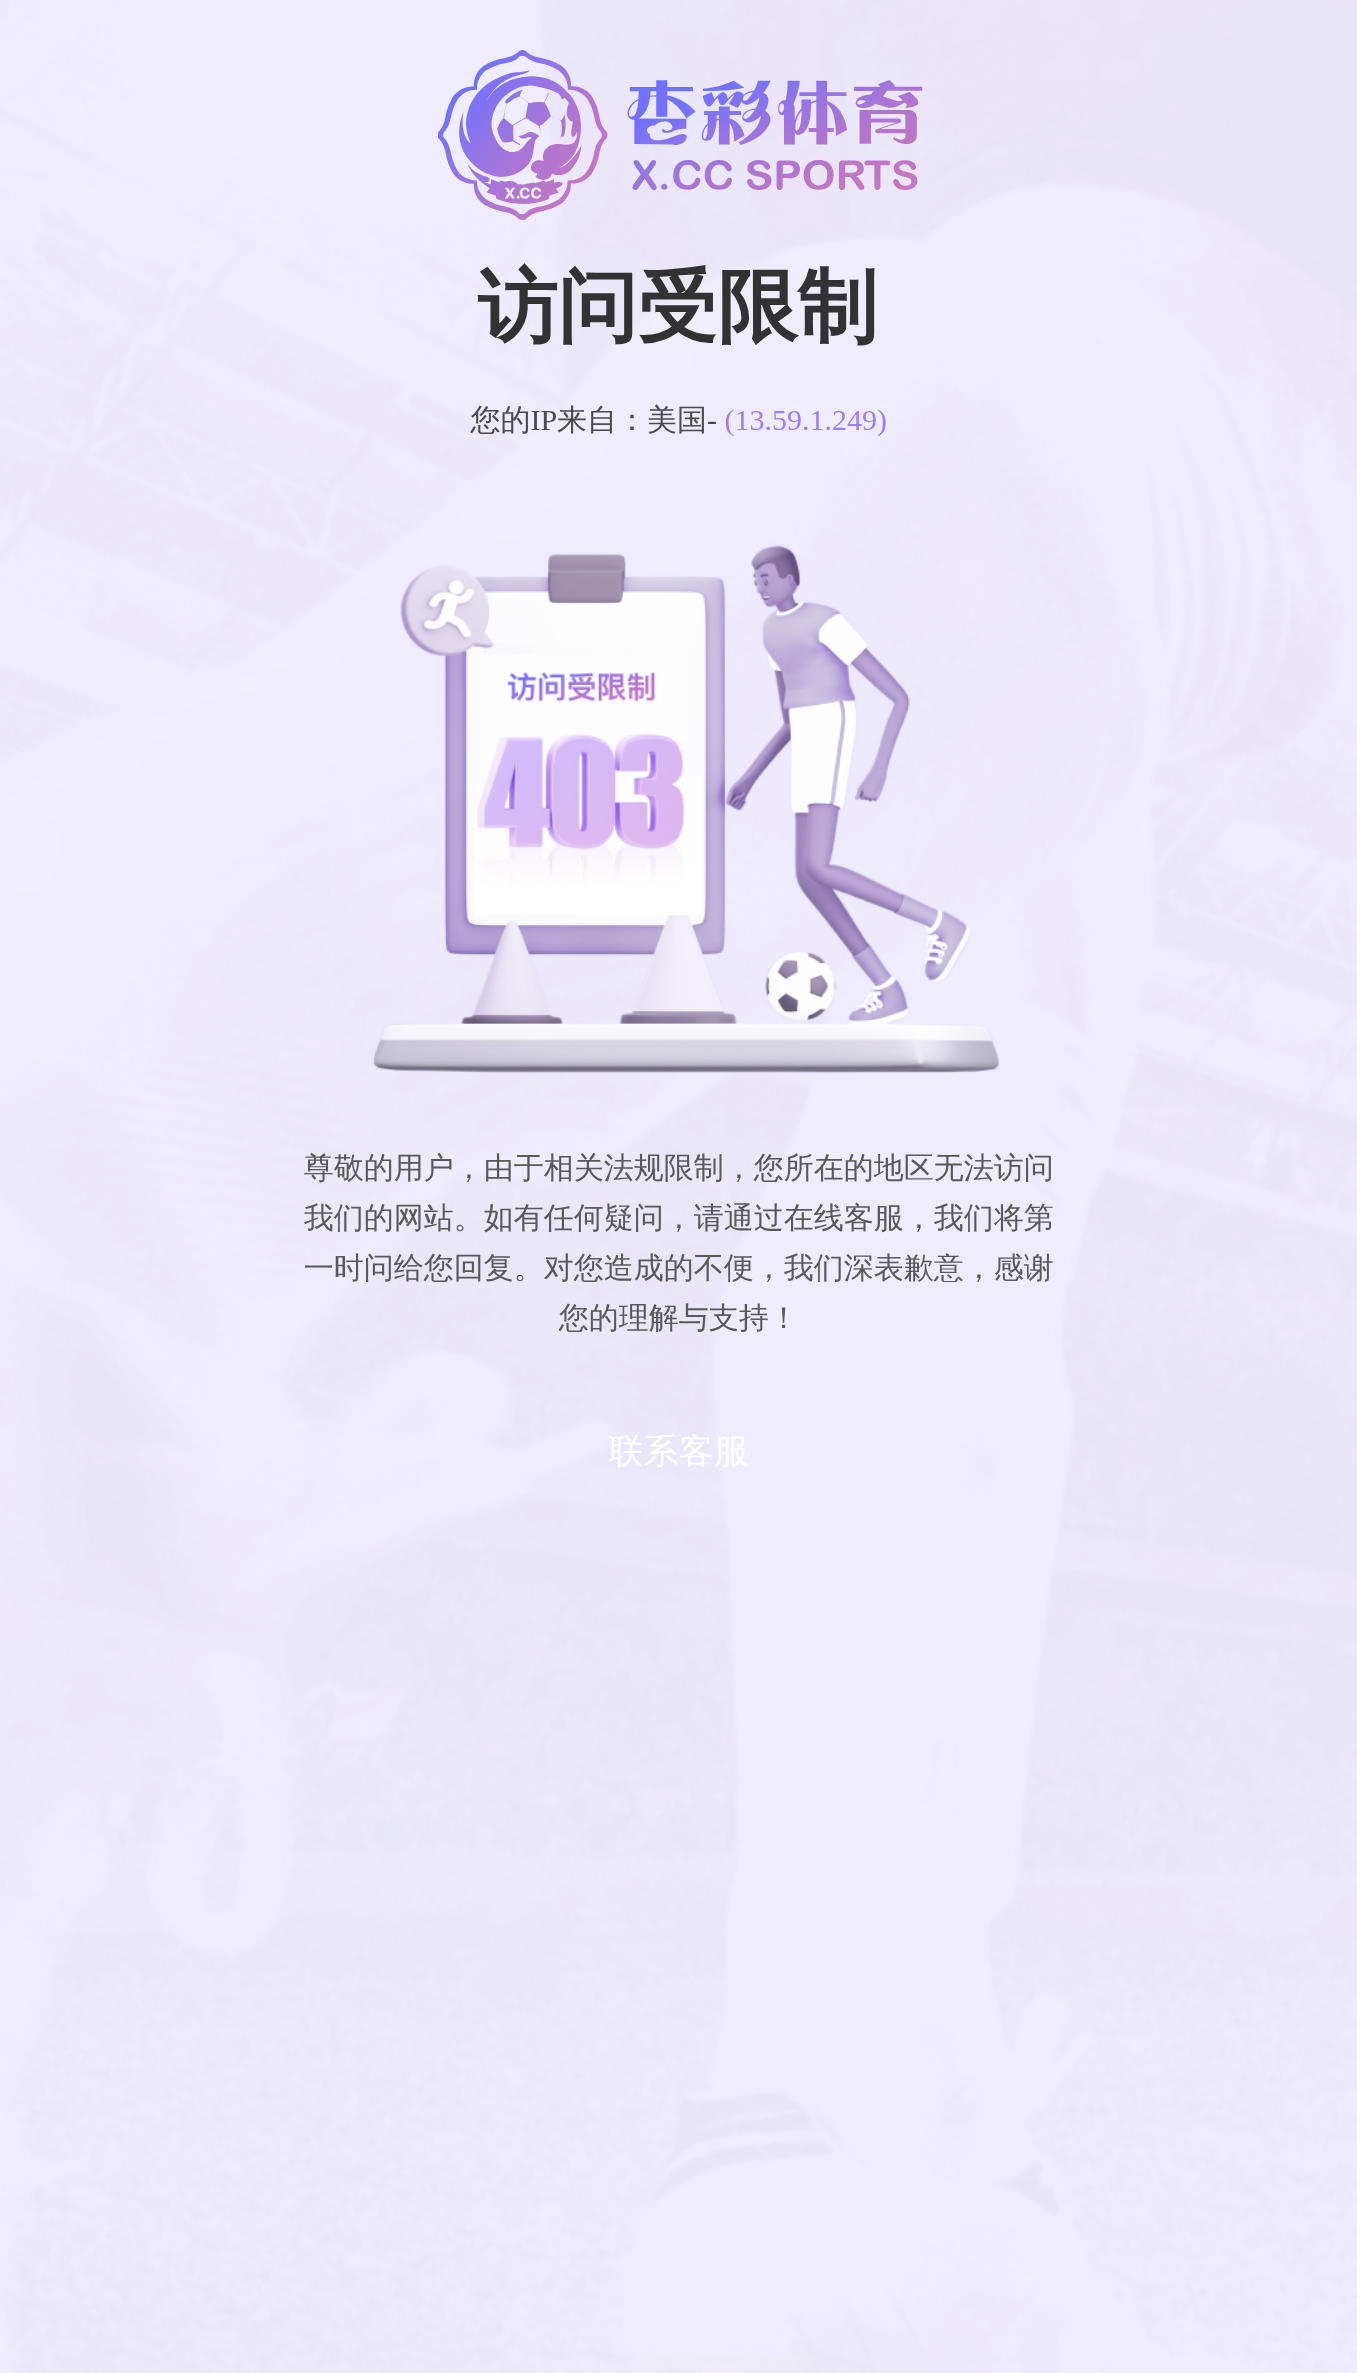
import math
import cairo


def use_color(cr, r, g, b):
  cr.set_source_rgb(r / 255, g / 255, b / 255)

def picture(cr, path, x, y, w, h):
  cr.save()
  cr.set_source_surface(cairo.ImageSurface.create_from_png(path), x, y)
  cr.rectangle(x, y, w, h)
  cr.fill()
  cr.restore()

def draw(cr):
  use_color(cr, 255, 255, 255)
  cr.paint()
  picture(cr, "img_01.png", 0, 0, 1357, 2373)


surface = cairo.ImageSurface(cairo.FORMAT_RGB24, 1357, 2373)
cr = cairo.Context(surface)
options = cairo.FontOptions()
options.set_hint_metrics(cairo.HINT_METRICS_OFF)
options.set_hint_style(cairo.HINT_STYLE_NONE)
cr.set_font_options(options)
cr.set_miter_limit(4)
draw(cr)
surface.write_to_png("out.png")
